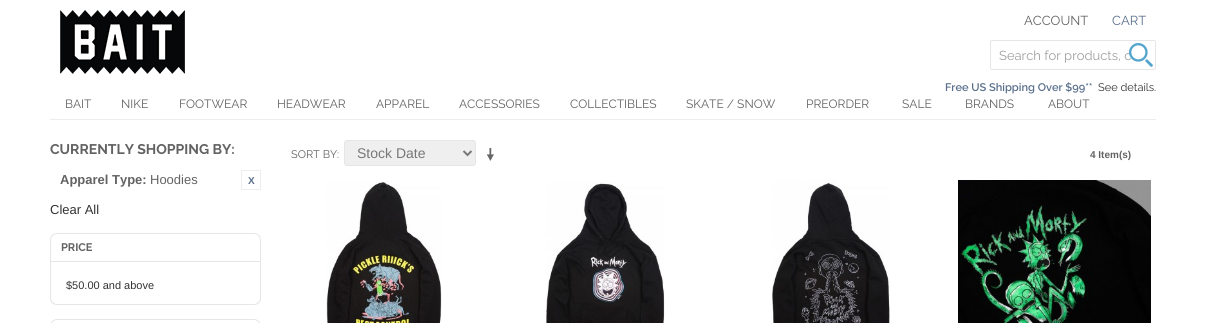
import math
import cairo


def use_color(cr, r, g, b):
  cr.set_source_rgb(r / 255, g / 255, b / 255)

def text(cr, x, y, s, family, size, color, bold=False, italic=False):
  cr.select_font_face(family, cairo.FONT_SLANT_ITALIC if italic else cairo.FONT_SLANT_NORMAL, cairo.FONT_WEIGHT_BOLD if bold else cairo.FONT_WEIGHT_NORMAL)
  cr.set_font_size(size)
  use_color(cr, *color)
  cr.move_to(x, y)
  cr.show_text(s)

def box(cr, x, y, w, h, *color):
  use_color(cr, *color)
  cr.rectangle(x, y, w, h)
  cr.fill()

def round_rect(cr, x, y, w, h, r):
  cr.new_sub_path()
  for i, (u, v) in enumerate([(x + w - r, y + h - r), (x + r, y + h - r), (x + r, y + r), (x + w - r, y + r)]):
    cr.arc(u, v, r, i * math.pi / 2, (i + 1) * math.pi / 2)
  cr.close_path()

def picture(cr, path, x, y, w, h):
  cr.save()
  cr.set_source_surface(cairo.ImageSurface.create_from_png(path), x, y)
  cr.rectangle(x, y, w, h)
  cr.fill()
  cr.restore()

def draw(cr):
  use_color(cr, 255, 255, 255)
  cr.paint()
  picture(cr, "img_01.png", 60, 10, 125, 64)
  round_rect(cr, 990.5, 40.5, 165, 29, 1.5)
  use_color(cr, 230, 230, 230)
  cr.set_line_width(1)
  cr.stroke()
  box(cr, 50, 119, 1106, 1, 237, 237, 237)
  cr.rectangle(241.5, 170.5, 19, 19)
  cr.stroke()
  cr.new_path()
  cr.move_to(57, 233.5)
  cr.line_to(254, 233.5)
  cr.curve_to(257.5, 233.5, 260.5, 236.5, 260.5, 240)
  cr.line_to(260.5, 261.5)
  cr.line_to(50.5, 261.5)
  cr.line_to(50.5, 240)
  cr.curve_to(50.5, 236.5, 53.5, 233.5, 57, 233.5)
  cr.close_path()
  use_color(cr, 230, 230, 230)
  cr.stroke()
  cr.set_fill_rule(cairo.FILL_RULE_EVEN_ODD)
  cr.new_path()
  cr.move_to(50, 262)
  cr.line_to(261, 262)
  cr.line_to(261, 298)
  cr.curve_to(261, 302, 258, 305, 254, 305)
  cr.line_to(57, 305)
  cr.curve_to(53, 305, 50, 302, 50, 298)
  cr.close_path()
  cr.move_to(51, 262)
  cr.line_to(260, 262)
  cr.line_to(260, 298)
  cr.curve_to(260, 301, 257, 304, 254, 304)
  cr.line_to(57, 304)
  cr.curve_to(54, 304, 51, 301, 51, 298)
  cr.close_path()
  cr.fill()
  cr.new_path()
  cr.move_to(57, 319.5)
  cr.line_to(254, 319.5)
  cr.curve_to(257.5, 319.5, 260.5, 322.5, 260.5, 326)
  cr.line_to(260.5, 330.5)
  cr.line_to(50.5, 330.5)
  cr.line_to(50.5, 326)
  cr.curve_to(50.5, 322.5, 53.5, 319.5, 57, 319.5)
  cr.close_path()
  cr.stroke()
  use_color(cr, 239, 239, 239)
  round_rect(cr, 344.5, 140.5, 131, 25, 2.5)
  cr.fill_preserve()
  use_color(cr, 230, 230, 230)
  cr.stroke()
  cr.new_path()
  cr.move_to(463.5, 151)
  cr.line_to(467.5, 155)
  cr.line_to(471.5, 151)
  use_color(cr, 119, 119, 119)
  cr.set_line_width(2)
  cr.stroke()
  picture(cr, "img_03.png", 486, 147, 8, 14)
  picture(cr, "img_04.png", 326, 181, 116, 142)
  picture(cr, "img_05.png", 546, 181, 119, 142)
  picture(cr, "img_06.png", 772, 180, 118, 143)
  picture(cr, "img_07.png", 958, 180, 193, 143)
  text(cr, 1024, 25, "ACCOUNT", "Raleway", 13, (99, 99, 99))
  text(cr, 1112, 25, "CART", "Raleway", 13, (89, 111, 140))
  text(cr, 945, 91, "Free US Shipping Over $99**", "Raleway SemiBold", 11, (89, 111, 140))
  text(cr, 1098, 91, "See details.", "Raleway", 11, (51, 51, 51))
  text(cr, 999, 60, "Search for products, c", "Raleway", 13, (160, 160, 160))
  picture(cr, "img_02.png", 1129, 43, 24, 24)
  text(cr, 65, 108, "BAIT", "Raleway", 12, (99, 99, 99))
  text(cr, 121, 108, "NIKE", "Raleway", 12, (99, 99, 99))
  text(cr, 179, 108, "FOOTWEAR", "Raleway", 12, (99, 99, 99))
  text(cr, 277, 108, "HEADWEAR", "Raleway", 12, (99, 99, 99))
  text(cr, 376, 108, "APPAREL", "Raleway", 12, (99, 99, 99))
  text(cr, 459, 108, "ACCESSORIES", "Raleway", 12, (99, 99, 99))
  text(cr, 570, 108, "COLLECTIBLES", "Raleway", 12, (99, 99, 99))
  text(cr, 686, 108, "SKATE / SNOW", "Raleway", 12, (99, 99, 99))
  text(cr, 806, 108, "PREORDER", "Raleway", 12, (99, 99, 99))
  text(cr, 902, 108, "SALE", "Raleway", 12, (99, 99, 99))
  text(cr, 965, 108, "BRANDS", "Raleway", 12, (99, 99, 99))
  text(cr, 1048, 108, "ABOUT", "Raleway", 12, (99, 99, 99))
  text(cr, 50, 154, "CURRENTLY SHOPPING BY:", "Raleway", 14, (99, 99, 99), bold=True)
  text(cr, 60, 184, "Apparel Type:", "Liberation Sans", 13, (99, 99, 99), bold=True)
  text(cr, 150, 184, "Hoodies", "Liberation Sans", 13, (99, 99, 99))
  text(cr, 248, 184, "X", "Liberation Sans", 10, (89, 111, 140), bold=True)
  text(cr, 50, 214, "Clear All", "Liberation Sans", 13, (51, 51, 51))
  text(cr, 61, 251, "PRICE", "Raleway", 11, (99, 99, 99), bold=True)
  text(cr, 66, 289, "$50.00 and above", "Liberation Sans", 11, (51, 51, 51))
  text(cr, 291, 158, "SORT BY:", "Raleway", 11, (99, 99, 99))
  text(cr, 357, 158, "Stock Date", "Liberation Sans", 14, (119, 119, 119))
  text(cr, 1090, 158, "4 Item(s)", "Liberation Sans", 10, (99, 99, 99), bold=True)


surface = cairo.ImageSurface(cairo.FORMAT_RGB24, 1206, 323)
cr = cairo.Context(surface)
options = cairo.FontOptions()
options.set_hint_metrics(cairo.HINT_METRICS_OFF)
options.set_hint_style(cairo.HINT_STYLE_NONE)
cr.set_font_options(options)
cr.set_miter_limit(4)
draw(cr)
surface.write_to_png("out.png")
